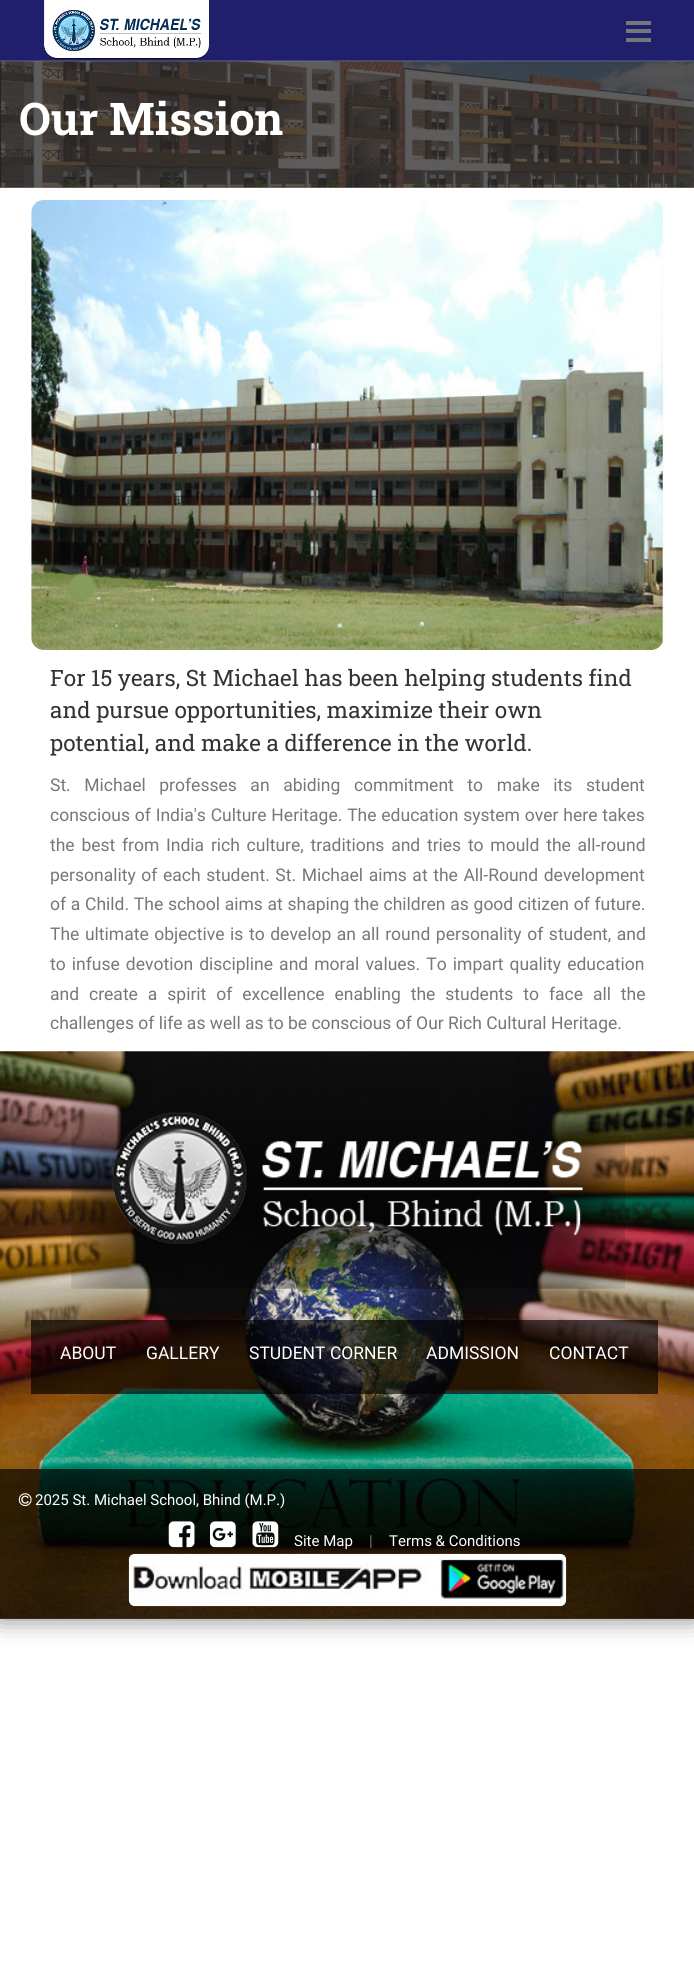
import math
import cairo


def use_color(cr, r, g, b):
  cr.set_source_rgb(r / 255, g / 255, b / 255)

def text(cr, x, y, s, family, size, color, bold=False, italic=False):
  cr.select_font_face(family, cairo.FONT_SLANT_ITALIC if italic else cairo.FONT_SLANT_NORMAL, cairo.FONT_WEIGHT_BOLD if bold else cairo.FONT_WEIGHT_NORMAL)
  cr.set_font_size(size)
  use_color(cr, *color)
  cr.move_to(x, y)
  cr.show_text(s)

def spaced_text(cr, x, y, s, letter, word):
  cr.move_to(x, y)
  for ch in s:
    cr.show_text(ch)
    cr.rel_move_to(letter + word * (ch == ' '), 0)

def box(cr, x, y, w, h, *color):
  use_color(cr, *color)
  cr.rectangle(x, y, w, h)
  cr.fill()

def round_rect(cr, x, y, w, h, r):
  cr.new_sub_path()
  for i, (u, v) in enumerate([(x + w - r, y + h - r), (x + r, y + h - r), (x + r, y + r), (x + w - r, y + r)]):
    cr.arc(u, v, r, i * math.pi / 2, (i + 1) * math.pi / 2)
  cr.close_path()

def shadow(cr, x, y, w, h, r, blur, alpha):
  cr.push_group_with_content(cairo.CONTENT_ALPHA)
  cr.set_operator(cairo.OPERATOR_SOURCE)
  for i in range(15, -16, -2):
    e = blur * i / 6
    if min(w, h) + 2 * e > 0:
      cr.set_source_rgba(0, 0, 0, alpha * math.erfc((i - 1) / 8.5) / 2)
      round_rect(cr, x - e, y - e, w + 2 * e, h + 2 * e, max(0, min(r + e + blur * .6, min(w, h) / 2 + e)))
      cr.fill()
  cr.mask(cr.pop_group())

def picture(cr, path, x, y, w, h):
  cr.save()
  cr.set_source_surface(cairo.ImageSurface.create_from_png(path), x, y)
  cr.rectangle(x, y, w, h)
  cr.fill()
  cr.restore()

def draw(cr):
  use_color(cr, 255, 255, 255)
  cr.paint()
  box(cr, 0, 61, 694, 127, 136, 136, 136)
  cr.save()
  cr.set_fill_rule(cairo.FILL_RULE_EVEN_ODD)
  cr.new_path()
  cr.move_to(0, 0)
  cr.line_to(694, 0)
  cr.line_to(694, 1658)
  cr.line_to(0, 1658)
  cr.close_path()
  cr.move_to(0, 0)
  cr.line_to(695, 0)
  cr.line_to(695, 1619)
  cr.line_to(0, 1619)
  cr.close_path()
  cr.clip()
  use_color(cr, 0, 0, 0)
  shadow(cr, 0, 0, 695, 1619, 0, 12.5, 0.5)
  cr.restore()
  box(cr, 0, 0, 694, 60, 32, 31, 109)
  box(cr, 0, 60, 694, 1, 65, 65, 131)
  picture(cr, "img_01.png", 43, 0, 167, 60)
  box(cr, 626, 21, 25, 4, 119, 119, 119)
  box(cr, 626, 29, 25, 4, 119, 119, 119)
  box(cr, 626, 38, 25, 4, 119, 119, 119)
  picture(cr, "img_02.png", 0, 61, 694, 127)
  picture(cr, "img_03.png", 31, 200, 633, 450)
  picture(cr, "img_04.png", 0, 1051, 694, 568)
  picture(cr, "img_05.png", 71, 1057, 554, 232)
  cr.set_source_rgba(0, 0, 0, 0.65)
  cr.rectangle(31, 1320, 627, 74)
  cr.fill()
  cr.rectangle(0, 1469, 694, 150)
  cr.fill()
  picture(cr, "img_06.png", 18, 1493, 14, 14)
  picture(cr, "img_07.png", 168, 1521, 27, 27)
  picture(cr, "img_08.png", 210, 1521, 26, 27)
  picture(cr, "img_09.png", 252, 1521, 27, 27)
  picture(cr, "img_10.png", 128, 1553, 439, 54)
  text(cr, 19, 135, "Our Mission", "Roboto Slab", 45, (255, 255, 255), bold=True)
  text(cr, 50, 686, "For 15 years, St Michael has been helping students find", "Roboto Slab", 22.5, (51, 51, 51))
  text(cr, 50, 718, "and pursue opportunities, maximize their own", "Roboto Slab", 22.5, (51, 51, 51))
  text(cr, 50, 751, "potential, and make a difference in the world.", "Roboto Slab", 22.5, (51, 51, 51))
  cr.select_font_face("Roboto")
  cr.set_font_size(17.5)
  use_color(cr, 119, 119, 119)
  spaced_text(cr, 50, 791, "St. Michael professes an abiding commitment to make its student", 0, 9.25)
  spaced_text(cr, 50, 821, "conscious of India's Culture Heritage. The education system over here takes", 0, 0.5)
  spaced_text(cr, 50, 851, "the best from India rich culture, traditions and tries to mould the all-round", 0, 2.4)
  spaced_text(cr, 50, 881, "personality of each student. St. Michael aims at the All-Round development", 0, 1.25)
  spaced_text(cr, 50, 910, "of a Child. The school aims at shaping the children as good citizen of future.", 0, 0.4)
  spaced_text(cr, 50, 940, "The ultimate objective is to develop an all round personality of student, and", 0, 1.25)
  spaced_text(cr, 50, 970, "to infuse devotion discipline and moral values. To impart quality education", 0, 1.75)
  spaced_text(cr, 50, 1000, "and create a spirit of excellence enabling the students to face all the", 0, 5.6)
  text(cr, 50, 1029, "challenges of life as well as to be conscious of Our Rich Cultural Heritage.", "Roboto", 17.5, (119, 119, 119))
  text(cr, 60, 1359, "ABOUT", "Roboto", 17.5, (255, 255, 255))
  text(cr, 146, 1359, "GALLERY", "Roboto", 17.5, (255, 255, 255))
  text(cr, 249, 1359, "STUDENT CORNER", "Roboto", 17.5, (255, 255, 255))
  text(cr, 426, 1359, "ADMISSION", "Roboto", 17.5, (255, 255, 255))
  text(cr, 549, 1359, "CONTACT", "Roboto", 17.5, (255, 255, 255))
  text(cr, 35, 1505, "2025 St. Michael School, Bhind (M.P.)", "Roboto", 15, (255, 255, 255))
  text(cr, 294, 1546, "Site Map", "Roboto", 15, (255, 255, 255))
  text(cr, 369, 1546, "|", "Roboto", 15, (119, 119, 119))
  text(cr, 389, 1546, "Terms & Conditions", "Roboto", 15, (255, 255, 255))


surface = cairo.ImageSurface(cairo.FORMAT_RGB24, 694, 1983)
cr = cairo.Context(surface)
options = cairo.FontOptions()
options.set_hint_metrics(cairo.HINT_METRICS_OFF)
options.set_hint_style(cairo.HINT_STYLE_NONE)
cr.set_font_options(options)
cr.set_miter_limit(4)
draw(cr)
surface.write_to_png("out.png")
